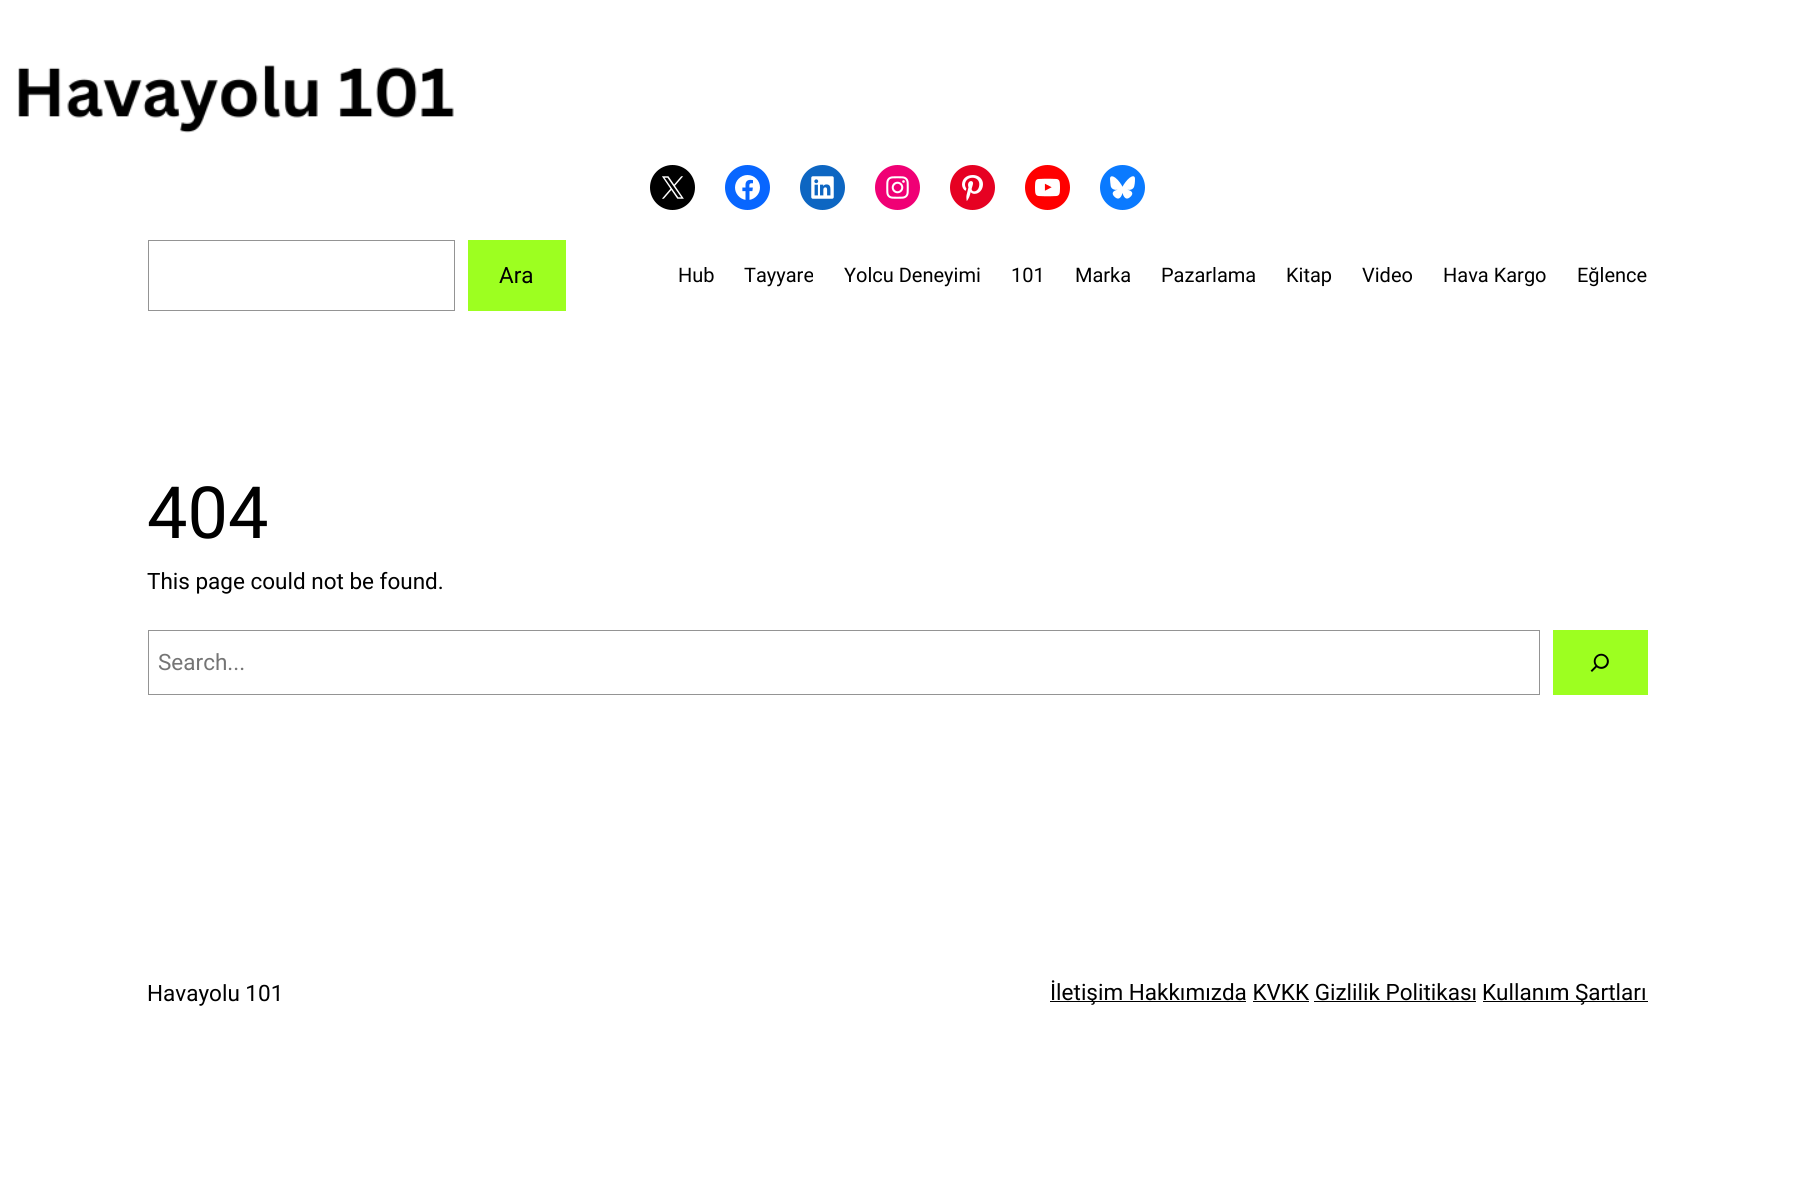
import math
import cairo


def use_color(cr, r, g, b):
  cr.set_source_rgb(r / 255, g / 255, b / 255)

def text(cr, x, y, s, family, size, color, bold=False, italic=False):
  cr.select_font_face(family, cairo.FONT_SLANT_ITALIC if italic else cairo.FONT_SLANT_NORMAL, cairo.FONT_WEIGHT_BOLD if bold else cairo.FONT_WEIGHT_NORMAL)
  cr.set_font_size(size)
  use_color(cr, *color)
  cr.move_to(x, y)
  cr.show_text(s)

def box(cr, x, y, w, h, *color):
  use_color(cr, *color)
  cr.rectangle(x, y, w, h)
  cr.fill()

def picture(cr, path, x, y, w, h):
  cr.save()
  cr.set_source_surface(cairo.ImageSurface.create_from_png(path), x, y)
  cr.rectangle(x, y, w, h)
  cr.fill()
  cr.restore()

def draw(cr):
  use_color(cr, 255, 255, 255)
  cr.paint()
  picture(cr, "img_01.png", 18, 65, 436, 68)
  use_color(cr, 0, 0, 0)
  cr.arc(672.5, 187.5, 22.5, 0, 2 * math.pi)
  cr.fill()
  picture(cr, "img_02.png", 662, 176, 22, 23)
  use_color(cr, 8, 102, 255)
  cr.arc(747.5, 187.5, 22.5, 0, 2 * math.pi)
  cr.fill()
  picture(cr, "img_03.png", 735, 175, 25, 25)
  use_color(cr, 13, 102, 194)
  cr.arc(822.5, 187.5, 22.5, 0, 2 * math.pi)
  cr.fill()
  picture(cr, "img_04.png", 811, 176, 23, 23)
  use_color(cr, 240, 0, 117)
  cr.arc(897.5, 187.5, 22.5, 0, 2 * math.pi)
  cr.fill()
  picture(cr, "img_05.png", 886, 176, 23, 23)
  use_color(cr, 230, 1, 34)
  cr.arc(972.5, 187.5, 22.5, 0, 2 * math.pi)
  cr.fill()
  picture(cr, "img_06.png", 962, 175, 21, 26)
  use_color(cr, 255, 0, 0)
  cr.arc(1047.5, 187.5, 22.5, 0, 2 * math.pi)
  cr.fill()
  picture(cr, "img_07.png", 1035, 178, 25, 19)
  use_color(cr, 10, 122, 255)
  cr.arc(1122.5, 187.5, 22.5, 0, 2 * math.pi)
  cr.fill()
  picture(cr, "img_08.png", 1110, 176, 25, 23)
  cr.rectangle(148.5, 240.5, 306, 70)
  use_color(cr, 148, 148, 148)
  cr.set_line_width(1)
  cr.stroke()
  box(cr, 468, 240, 98, 71, 157, 255, 32)
  cr.rectangle(148.5, 630.5, 1391, 64)
  use_color(cr, 148, 148, 148)
  cr.stroke()
  box(cr, 1553, 630, 95, 65, 157, 255, 32)
  picture(cr, "img_09.png", 1590, 653, 19, 19)
  box(cr, 1050, 1001, 196, 1, 0, 0, 0)
  box(cr, 1483, 1001, 165, 1, 0, 0, 0)
  box(cr, 1253, 1001, 56, 1, 0, 0, 0)
  box(cr, 1314, 1001, 162, 1, 0, 0, 0)
  text(cr, 499, 283, "Ara", "Roboto", 22.5, (0, 0, 0))
  text(cr, 678, 282, "Hub", "Roboto", 20, (0, 0, 0))
  text(cr, 744, 282, "Tayyare", "Roboto", 20, (0, 0, 0))
  text(cr, 844, 282, "Yolcu Deneyimi", "Roboto", 20, (0, 0, 0))
  text(cr, 1011, 282, "101", "Roboto", 20, (0, 0, 0))
  text(cr, 1075, 282, "Marka", "Roboto", 20, (0, 0, 0))
  text(cr, 1161, 282, "Pazarlama", "Roboto", 20, (0, 0, 0))
  text(cr, 1286, 282, "Kitap", "Roboto", 20, (0, 0, 0))
  text(cr, 1362, 282, "Video", "Roboto", 20, (0, 0, 0))
  text(cr, 1443, 282, "Hava Kargo", "Roboto", 20, (0, 0, 0))
  text(cr, 1577, 282, "Eğlence", "Roboto", 20, (0, 0, 0))
  text(cr, 147, 538, "404", "Roboto", 72, (0, 0, 0))
  text(cr, 147, 589, "This page could not be found.", "Roboto", 22.5, (0, 0, 0))
  text(cr, 158, 670, "Search...", "Roboto", 22.5, (117, 117, 117))
  text(cr, 147, 1001, "Havayolu 101", "Roboto", 22.5, (0, 0, 0))
  text(cr, 1050, 1000, "İletişim Hakkımızda KVKK Gizlilik Politikası", "Roboto", 22.5, (0, 0, 0))
  text(cr, 1482, 1000, "Kullanım Şartları", "Roboto", 22.5, (0, 0, 0))


surface = cairo.ImageSurface(cairo.FORMAT_RGB24, 1793, 1186)
cr = cairo.Context(surface)
options = cairo.FontOptions()
options.set_hint_metrics(cairo.HINT_METRICS_OFF)
options.set_hint_style(cairo.HINT_STYLE_NONE)
cr.set_font_options(options)
cr.set_miter_limit(4)
draw(cr)
surface.write_to_png("out.png")
